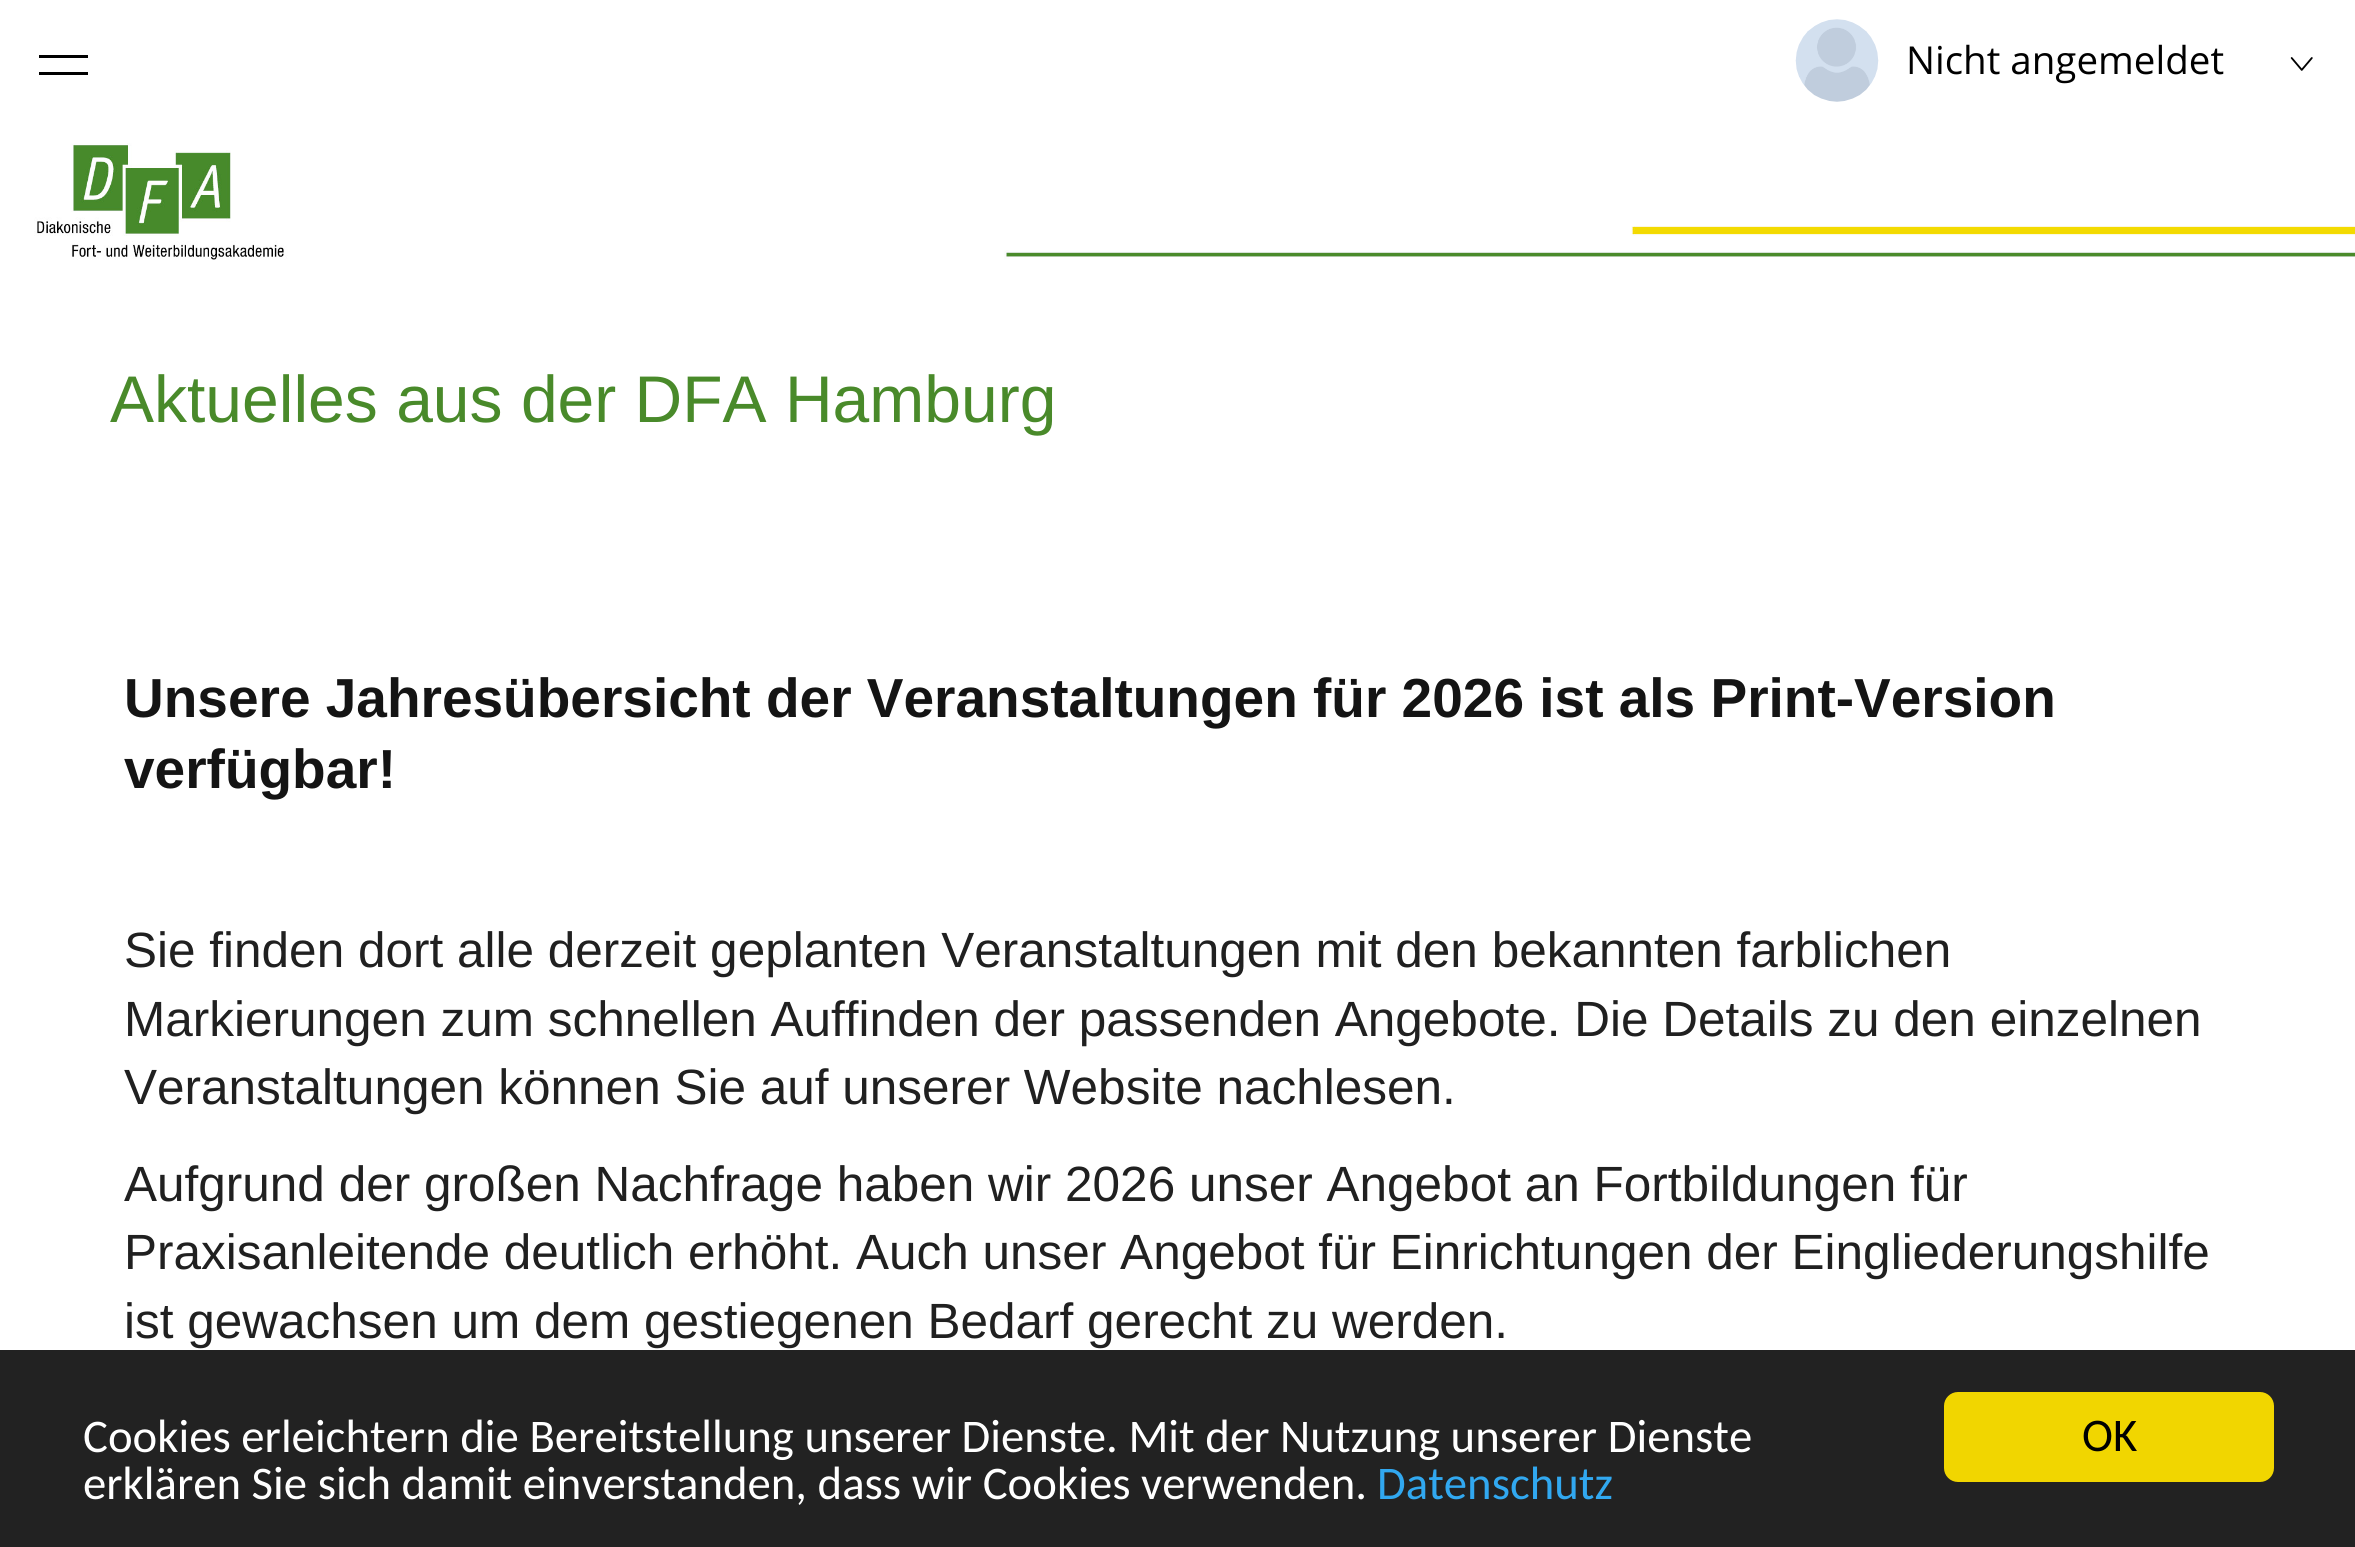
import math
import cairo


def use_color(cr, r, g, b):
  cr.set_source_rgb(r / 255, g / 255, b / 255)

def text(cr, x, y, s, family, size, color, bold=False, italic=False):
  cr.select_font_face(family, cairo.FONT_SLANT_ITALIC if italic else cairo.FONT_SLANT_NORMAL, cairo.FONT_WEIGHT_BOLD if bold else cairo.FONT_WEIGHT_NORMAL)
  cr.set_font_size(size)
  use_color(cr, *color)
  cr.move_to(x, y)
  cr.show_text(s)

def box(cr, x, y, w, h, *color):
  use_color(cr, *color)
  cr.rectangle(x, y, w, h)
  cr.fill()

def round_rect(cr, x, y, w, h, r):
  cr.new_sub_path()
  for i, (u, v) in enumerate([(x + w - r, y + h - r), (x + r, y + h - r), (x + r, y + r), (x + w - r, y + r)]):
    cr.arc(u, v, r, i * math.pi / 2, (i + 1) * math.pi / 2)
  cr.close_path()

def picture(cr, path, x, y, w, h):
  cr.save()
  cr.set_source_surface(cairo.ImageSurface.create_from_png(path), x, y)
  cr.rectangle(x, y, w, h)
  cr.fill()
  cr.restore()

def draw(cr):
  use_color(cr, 255, 255, 255)
  cr.paint()
  box(cr, 39, 55, 49, 3, 0, 0, 0)
  box(cr, 39, 72, 49, 3, 0, 0, 0)
  picture(cr, "img_01.png", 1795, 19, 84, 83)
  picture(cr, "img_02.png", 2290, 57, 23, 14)
  picture(cr, "img_03.png", 34, 143, 2321, 117)
  box(cr, 0, 1350, 2355, 197, 34, 34, 34)
  use_color(cr, 241, 214, 0)
  round_rect(cr, 1944, 1392, 330, 90, 14)
  cr.fill()
  text(cr, 1906, 74, "Nicht angemeldet", "Open Sans", 38.5, (0, 0, 0))
  text(cr, 110, 422, "Aktuelles aus der DFA Hamburg", "Liberation Sans", 66, (73, 138, 42))
  text(cr, 124, 717, "Unsere Jahresübersicht der Veranstaltungen für 2026 ist als Print-Version", "Liberation Sans", 55, (20, 20, 20), bold=True)
  text(cr, 124, 788, "verfügbar!", "Liberation Sans", 55, (20, 20, 20), bold=True)
  text(cr, 124, 967, "Sie finden dort alle derzeit geplanten Veranstaltungen mit den bekannten farblichen", "Liberation Sans", 49.5, (32, 32, 32))
  text(cr, 124, 1036, "Markierungen zum schnellen Auffinden der passenden Angebote. Die Details zu den einzelnen", "Liberation Sans", 49.5, (32, 32, 32))
  text(cr, 124, 1104, "Veranstaltungen können Sie auf unserer Website nachlesen.", "Liberation Sans", 49.5, (32, 32, 32))
  text(cr, 124, 1201, "Aufgrund der großen Nachfrage haben wir 2026 unser Angebot an Fortbildungen für", "Liberation Sans", 49.5, (32, 32, 32))
  text(cr, 124, 1269, "Praxisanleitende deutlich erhöht. Auch unser Angebot für Einrichtungen der Eingliederungshilfe", "Liberation Sans", 49.5, (32, 32, 32))
  text(cr, 124, 1338, "ist gewachsen um dem gestiegenen Bedarf gerecht zu werden.", "Liberation Sans", 49.5, (32, 32, 32))
  text(cr, 83, 1452, "Cookies erleichtern die Bereitstellung unserer Dienste. Mit der Nutzung unserer Dienste", "Carlito", 46.75, (255, 255, 255))
  text(cr, 83, 1499, "erklären Sie sich damit einverstanden, dass wir Cookies verwenden.", "Carlito", 46.75, (255, 255, 255))
  text(cr, 1377, 1499, "Datenschutz", "Carlito", 46.75, (49, 168, 240))
  text(cr, 2082, 1451, "OK", "Carlito", 46.75, (0, 0, 0))


surface = cairo.ImageSurface(cairo.FORMAT_RGB24, 2355, 1547)
cr = cairo.Context(surface)
options = cairo.FontOptions()
options.set_hint_metrics(cairo.HINT_METRICS_OFF)
options.set_hint_style(cairo.HINT_STYLE_NONE)
cr.set_font_options(options)
cr.set_miter_limit(4)
draw(cr)
surface.write_to_png("out.png")
